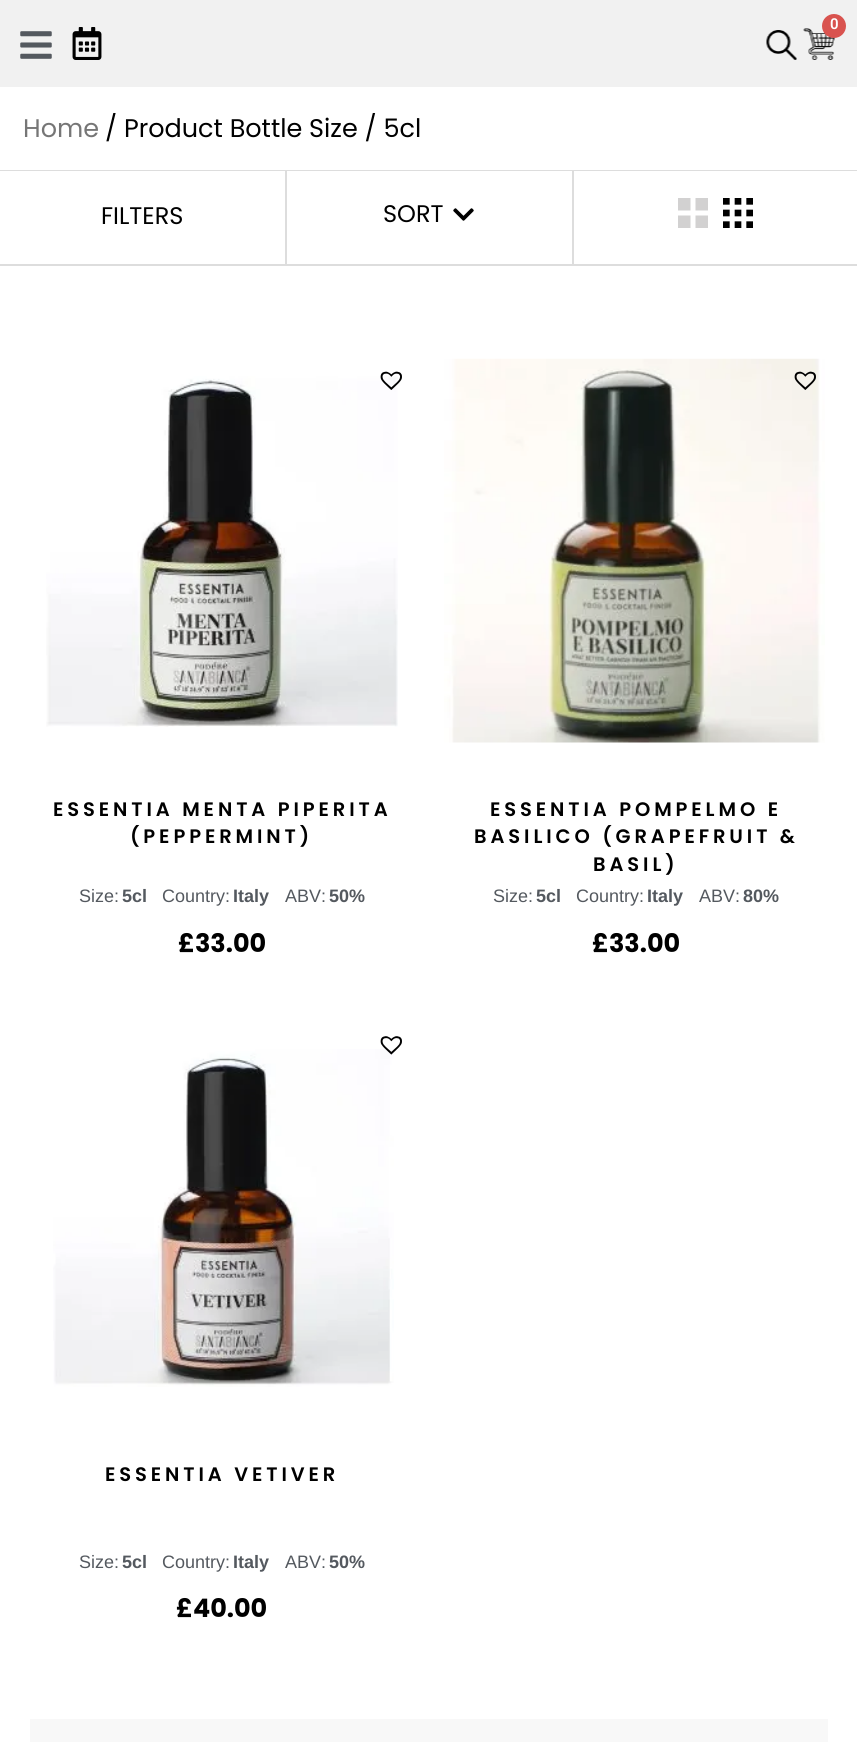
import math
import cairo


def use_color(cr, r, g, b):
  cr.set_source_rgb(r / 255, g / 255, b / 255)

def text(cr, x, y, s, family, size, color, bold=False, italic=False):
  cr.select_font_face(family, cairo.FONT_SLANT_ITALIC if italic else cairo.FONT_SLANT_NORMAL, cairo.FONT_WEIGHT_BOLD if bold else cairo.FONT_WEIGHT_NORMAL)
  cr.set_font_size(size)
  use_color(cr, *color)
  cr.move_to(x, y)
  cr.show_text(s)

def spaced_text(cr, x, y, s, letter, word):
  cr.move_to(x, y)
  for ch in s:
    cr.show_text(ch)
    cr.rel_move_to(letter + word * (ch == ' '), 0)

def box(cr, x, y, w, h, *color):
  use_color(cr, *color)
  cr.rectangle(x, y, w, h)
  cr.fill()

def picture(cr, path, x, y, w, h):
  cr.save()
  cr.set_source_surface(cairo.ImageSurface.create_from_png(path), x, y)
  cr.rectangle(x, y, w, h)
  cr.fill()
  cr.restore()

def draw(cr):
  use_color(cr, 241, 241, 241)
  cr.paint()
  picture(cr, "img_01.png", 803, 28, 33, 32)
  use_color(cr, 217, 83, 79)
  cr.arc(834, 26, 12, 0, 2 * math.pi)
  cr.fill()
  picture(cr, "img_02.png", 766, 30, 31, 30)
  picture(cr, "img_03.png", 20, 31, 32, 28)
  picture(cr, "img_04.png", 72, 27, 30, 33)
  box(cr, 0, 87, 857, 83, 255, 255, 255)
  use_color(cr, 221, 221, 221)
  cr.new_path()
  cr.move_to(-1, 170)
  cr.line_to(-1, 263)
  cr.line_to(0, 263)
  cr.line_to(0, 171)
  cr.line_to(857, 171)
  cr.line_to(857, 170)
  cr.close_path()
  cr.fill()
  box(cr, 0, 171, 857, 93, 255, 255, 255)
  box(cr, 285, 171, 2, 93, 221, 221, 221)
  picture(cr, "img_05.png", 453, 208, 21, 13)
  box(cr, 572, 171, 2, 93, 221, 221, 221)
  picture(cr, "img_06.png", 678, 198, 30, 30)
  picture(cr, "img_07.png", 723, 198, 30, 30)
  box(cr, 0, 266, 857, 1476, 255, 255, 255)
  box(cr, 0, 264, 857, 2, 221, 221, 221)
  picture(cr, "img_09.png", 46, 376, 352, 351)
  picture(cr, "img_08.png", 380, 371, 22, 19)
  picture(cr, "img_11.png", 444, 358, 381, 385)
  picture(cr, "img_10.png", 794, 371, 22, 19)
  picture(cr, "img_13.png", 53, 1049, 341, 338)
  picture(cr, "img_12.png", 380, 1036, 22, 19)
  box(cr, 30, 1719, 798, 23, 248, 248, 248)
  text(cr, 830, 29, "0", "Roboto SemiBold", 15, (255, 255, 255))
  text(cr, 23, 137, "Home", "Poppins", 25.5, (118, 118, 118))
  text(cr, 105, 137, "/ Product Bottle Size / 5cl", "Poppins", 25.5, (0, 0, 0))
  text(cr, 101, 224, "FILTERS", "Poppins", 24, (0, 0, 0))
  text(cr, 383, 222, "SORT", "Poppins", 24, (0, 0, 0))
  cr.select_font_face("Poppins SemiBold")
  cr.set_font_size(19.5)
  spaced_text(cr, 53, 816, "ESSENTIA MENTA PIPERITA", 3.9, 0)
  spaced_text(cr, 130, 843, "(PEPPERMINT)", 3.9, 0)
  text(cr, 79, 902, "Size:", "Liberation Sans", 18, (84, 89, 95))
  text(cr, 122, 902, "5cl", "Liberation Sans", 18, (84, 89, 95), bold=True)
  text(cr, 162, 902, "Country:", "Liberation Sans", 18, (84, 89, 95))
  text(cr, 233, 902, "Italy", "Liberation Sans", 18, (84, 89, 95), bold=True)
  text(cr, 285, 902, "ABV:", "Liberation Sans", 18, (84, 89, 95))
  text(cr, 329, 902, "50%", "Liberation Sans", 18, (84, 89, 95), bold=True)
  text(cr, 178, 952, "£33.00", "Poppins", 25.5, (0, 0, 0), bold=True)
  cr.select_font_face("Poppins SemiBold")
  cr.set_font_size(19.5)
  spaced_text(cr, 490, 816, "ESSENTIA POMPELMO E", 3.9, 0)
  spaced_text(cr, 474, 843, "BASILICO (GRAPEFRUIT &", 3.9, 0)
  spaced_text(cr, 593, 871, "BASIL)", 3.9, 0)
  text(cr, 493, 902, "Size:", "Liberation Sans", 18, (84, 89, 95))
  text(cr, 536, 902, "5cl", "Liberation Sans", 18, (84, 89, 95), bold=True)
  text(cr, 576, 902, "Country:", "Liberation Sans", 18, (84, 89, 95))
  text(cr, 647, 902, "Italy", "Liberation Sans", 18, (84, 89, 95), bold=True)
  text(cr, 699, 902, "ABV:", "Liberation Sans", 18, (84, 89, 95))
  text(cr, 743, 902, "80%", "Liberation Sans", 18, (84, 89, 95), bold=True)
  text(cr, 592, 952, "£33.00", "Poppins", 25.5, (0, 0, 0), bold=True)
  cr.select_font_face("Poppins SemiBold")
  cr.set_font_size(19.5)
  spaced_text(cr, 105, 1481, "ESSENTIA VETIVER", 3.9, 0)
  text(cr, 79, 1568, "Size:", "Liberation Sans", 18, (84, 89, 95))
  text(cr, 122, 1568, "5cl", "Liberation Sans", 18, (84, 89, 95), bold=True)
  text(cr, 162, 1568, "Country:", "Liberation Sans", 18, (84, 89, 95))
  text(cr, 233, 1568, "Italy", "Liberation Sans", 18, (84, 89, 95), bold=True)
  text(cr, 285, 1568, "ABV:", "Liberation Sans", 18, (84, 89, 95))
  text(cr, 329, 1568, "50%", "Liberation Sans", 18, (84, 89, 95), bold=True)
  text(cr, 176, 1617, "£40.00", "Poppins", 25.5, (0, 0, 0), bold=True)


surface = cairo.ImageSurface(cairo.FORMAT_RGB24, 857, 1742)
cr = cairo.Context(surface)
options = cairo.FontOptions()
options.set_hint_metrics(cairo.HINT_METRICS_OFF)
options.set_hint_style(cairo.HINT_STYLE_NONE)
cr.set_font_options(options)
cr.set_miter_limit(4)
draw(cr)
surface.write_to_png("out.png")
